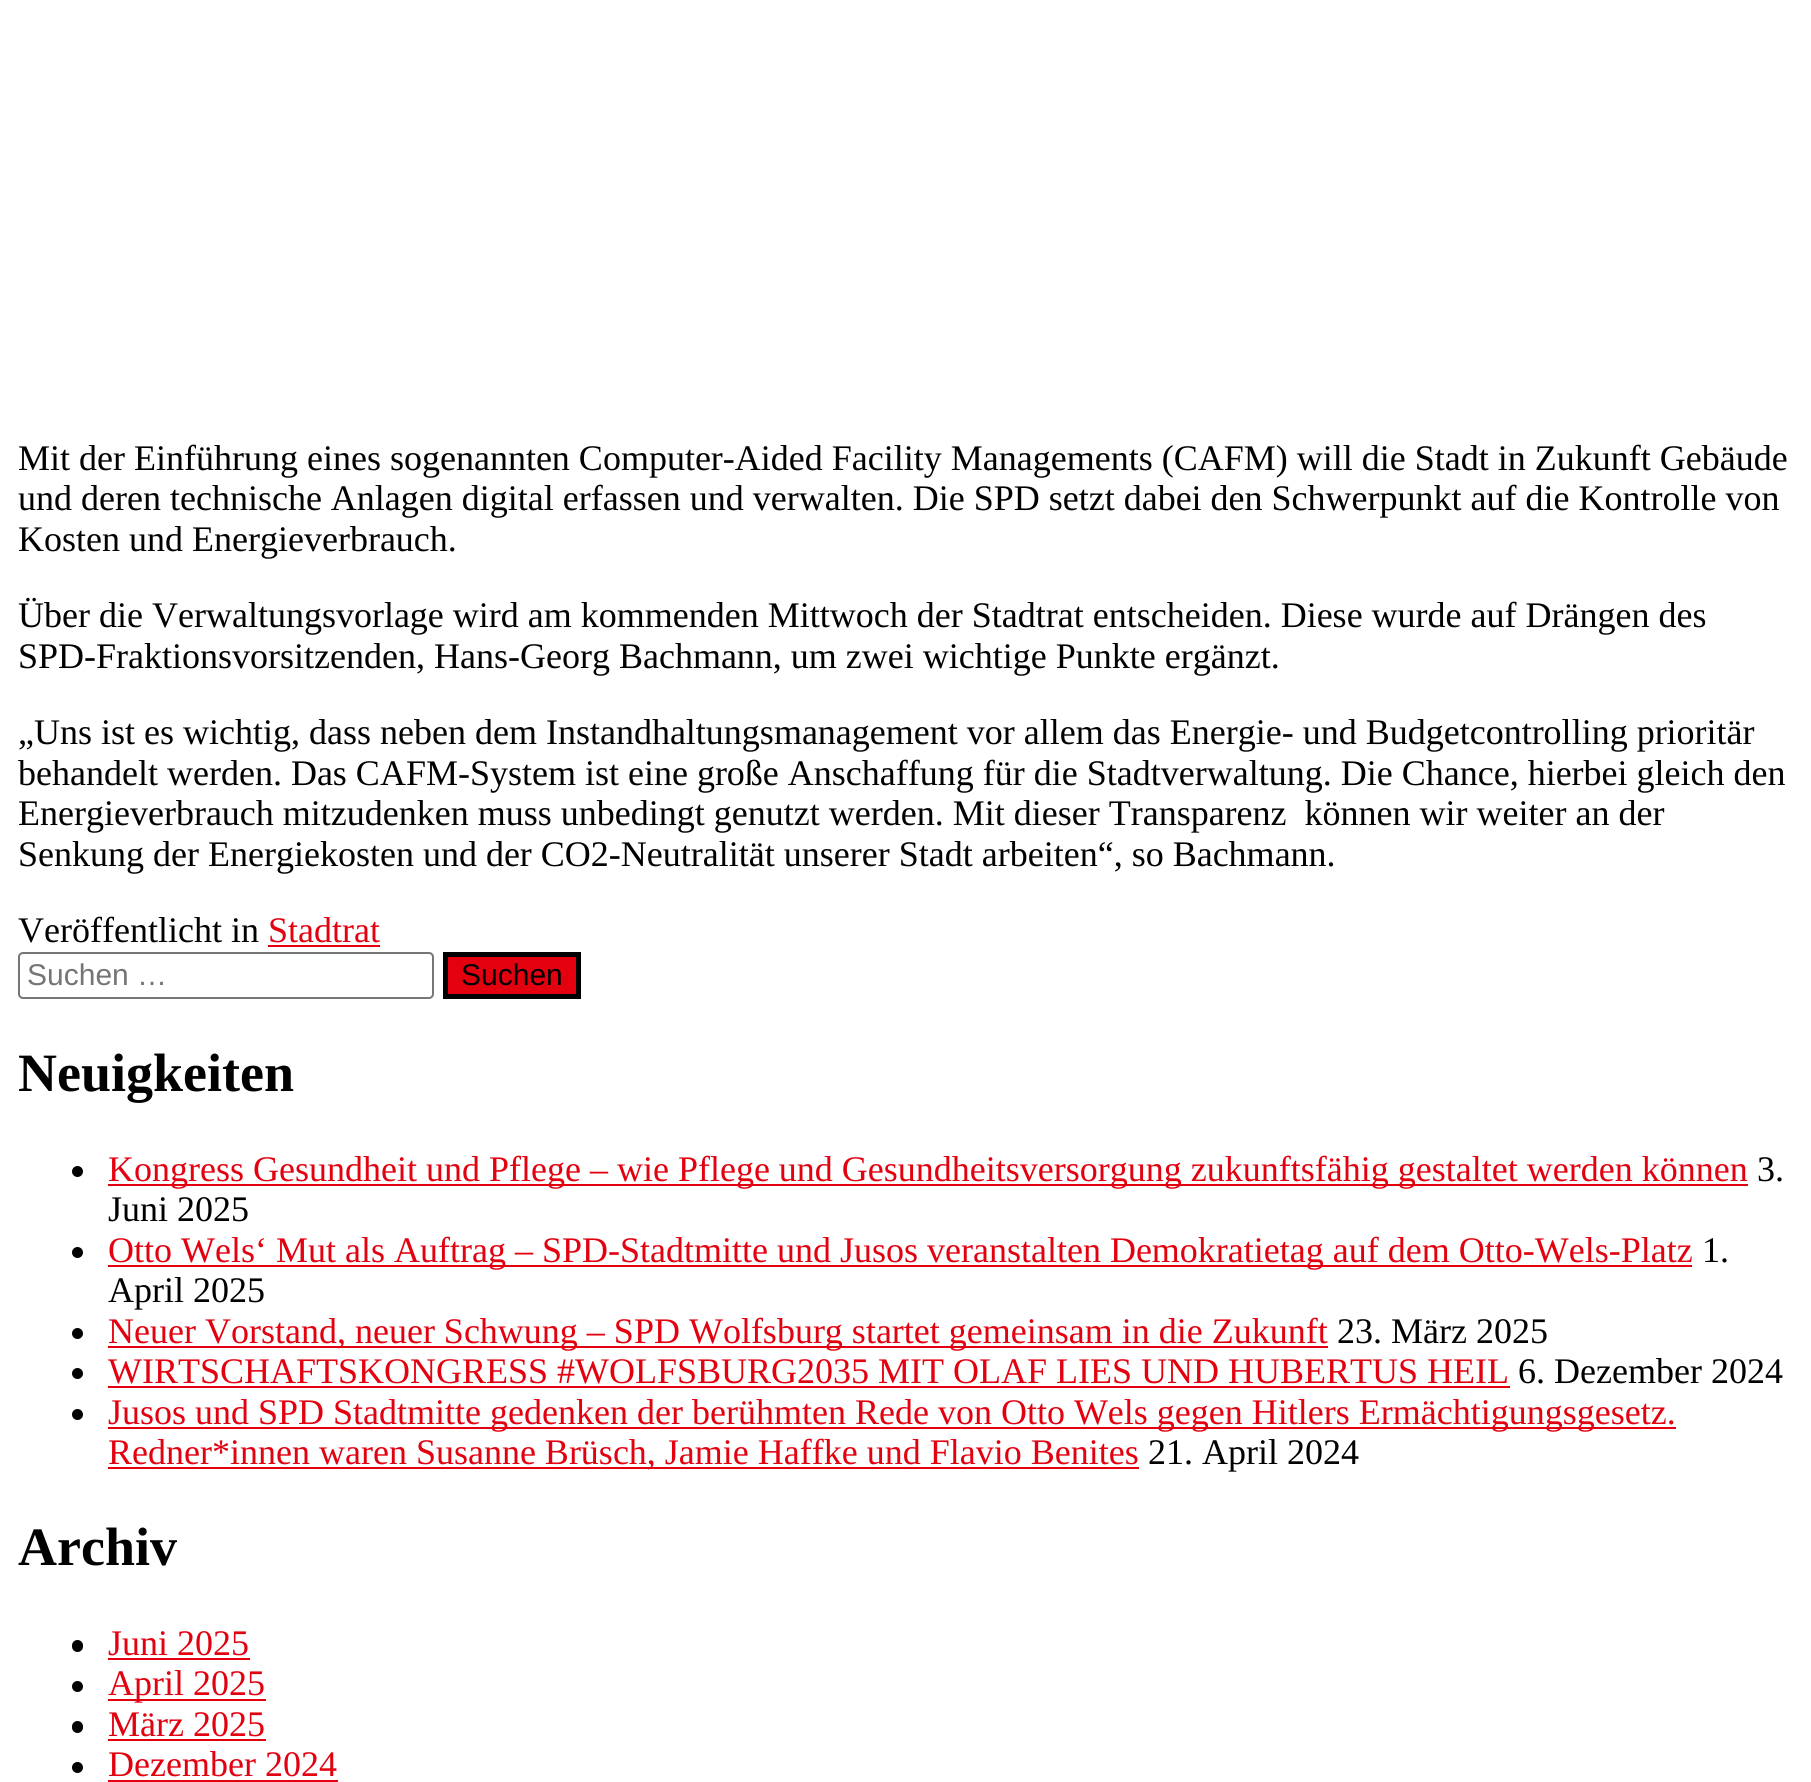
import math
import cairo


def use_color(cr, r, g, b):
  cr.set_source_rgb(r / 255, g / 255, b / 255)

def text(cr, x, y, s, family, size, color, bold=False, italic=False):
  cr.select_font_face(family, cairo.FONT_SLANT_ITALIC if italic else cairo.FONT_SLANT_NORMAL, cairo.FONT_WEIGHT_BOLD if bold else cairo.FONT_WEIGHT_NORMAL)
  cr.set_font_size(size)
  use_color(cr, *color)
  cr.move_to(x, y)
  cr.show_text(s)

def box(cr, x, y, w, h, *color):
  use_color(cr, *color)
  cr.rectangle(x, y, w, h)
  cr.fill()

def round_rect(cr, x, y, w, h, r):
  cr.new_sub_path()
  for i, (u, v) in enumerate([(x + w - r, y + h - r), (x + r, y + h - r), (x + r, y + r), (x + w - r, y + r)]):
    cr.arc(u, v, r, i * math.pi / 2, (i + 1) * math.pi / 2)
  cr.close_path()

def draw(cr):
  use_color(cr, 255, 255, 255)
  cr.paint()
  box(cr, 268, 945, 112, 2, 227, 0, 15)
  round_rect(cr, 19, 953, 414, 45, 4)
  use_color(cr, 118, 118, 118)
  cr.stroke()
  use_color(cr, 227, 0, 15)
  cr.rectangle(445.5, 954.5, 133, 42)
  cr.fill_preserve()
  use_color(cr, 0, 0, 0)
  cr.set_line_width(5)
  cr.stroke()
  cr.arc(77.5, 1171.5, 5.5, 0, 2 * math.pi)
  cr.fill()
  box(cr, 108, 1184, 1640, 2, 227, 0, 15)
  use_color(cr, 0, 0, 0)
  cr.arc(77.5, 1252.5, 5.5, 0, 2 * math.pi)
  cr.fill()
  box(cr, 108, 1265, 1584, 2, 227, 0, 15)
  use_color(cr, 0, 0, 0)
  cr.arc(77.5, 1333.5, 5.5, 0, 2 * math.pi)
  cr.fill()
  box(cr, 108, 1346, 1220, 2, 227, 0, 15)
  use_color(cr, 0, 0, 0)
  cr.arc(77.5, 1373.5, 5.5, 0, 2 * math.pi)
  cr.fill()
  box(cr, 108, 1386, 1402, 2, 227, 0, 15)
  use_color(cr, 0, 0, 0)
  cr.arc(77.5, 1414.5, 5.5, 0, 2 * math.pi)
  cr.fill()
  box(cr, 108, 1427, 1568, 2, 227, 0, 15)
  box(cr, 108, 1467, 1031, 2, 227, 0, 15)
  use_color(cr, 0, 0, 0)
  round_rect(cr, 72, 1640, 11, 12, 5.5)
  cr.fill()
  box(cr, 108, 1658, 142, 2, 227, 0, 15)
  use_color(cr, 0, 0, 0)
  cr.arc(77.5, 1686.5, 5.5, 0, 2 * math.pi)
  cr.fill()
  box(cr, 108, 1699, 158, 2, 227, 0, 15)
  use_color(cr, 0, 0, 0)
  round_rect(cr, 72, 1721, 11, 12, 5.5)
  cr.fill()
  box(cr, 108, 1739, 158, 2, 227, 0, 15)
  use_color(cr, 0, 0, 0)
  cr.arc(77.5, 1767.5, 5.5, 0, 2 * math.pi)
  cr.fill()
  box(cr, 108, 1780, 230, 2, 227, 0, 15)
  text(cr, 18, 470, "Mit der Einführung eines sogenannten Computer-Aided Facility Managements (CAFM) will die Stadt in Zukunft Gebäude", "Liberation Serif", 36, (0, 0, 0))
  text(cr, 18, 510, "und deren technische Anlagen digital erfassen und verwalten. Die SPD setzt dabei den Schwerpunkt auf die Kontrolle von", "Liberation Serif", 36, (0, 0, 0))
  text(cr, 18, 551, "Kosten und Energieverbrauch.", "Liberation Serif", 36, (0, 0, 0))
  text(cr, 18, 627, "Über die Verwaltungsvorlage wird am kommenden Mittwoch der Stadtrat entscheiden. Diese wurde auf Drängen des", "Liberation Serif", 36, (0, 0, 0))
  text(cr, 18, 668, "SPD-Fraktionsvorsitzenden, Hans-Georg Bachmann, um zwei wichtige Punkte ergänzt.", "Liberation Serif", 36, (0, 0, 0))
  text(cr, 18, 744, "„Uns ist es wichtig, dass neben dem Instandhaltungsmanagement vor allem das Energie- und Budgetcontrolling prioritär", "Liberation Serif", 36, (0, 0, 0))
  text(cr, 18, 785, "behandelt werden. Das CAFM-System ist eine große Anschaffung für die Stadtverwaltung. Die Chance, hierbei gleich den", "Liberation Serif", 36, (0, 0, 0))
  text(cr, 18, 825, "Energieverbrauch mitzudenken muss unbedingt genutzt werden. Mit dieser Transparenz  können wir weiter an der", "Liberation Serif", 36, (0, 0, 0))
  text(cr, 18, 866, "Senkung der Energiekosten und der CO2-Neutralität unserer Stadt arbeiten“, so Bachmann.", "Liberation Serif", 36, (0, 0, 0))
  text(cr, 18, 942, "Veröffentlicht in", "Liberation Serif", 36, (0, 0, 0))
  text(cr, 268, 942, "Stadtrat", "Liberation Serif", 36, (227, 0, 15))
  text(cr, 27, 985, "Suchen …", "Liberation Sans", 30, (117, 117, 117))
  text(cr, 461, 985, "Suchen", "Liberation Sans", 30, (0, 0, 0))
  text(cr, 18, 1091, "Neuigkeiten", "Liberation Serif", 54, (0, 0, 0), bold=True)
  text(cr, 108, 1181, "Kongress Gesundheit und Pflege – wie Pflege und Gesundheitsversorgung zukunftsfähig gestaltet werden können", "Liberation Serif", 36, (227, 0, 15))
  text(cr, 1757, 1181, "3.", "Liberation Serif", 36, (0, 0, 0))
  text(cr, 108, 1221, "Juni 2025", "Liberation Serif", 36, (0, 0, 0))
  text(cr, 108, 1262, "Otto Wels‘ Mut als Auftrag – SPD-Stadtmitte und Jusos veranstalten Demokratietag auf dem Otto-Wels-Platz", "Liberation Serif", 36, (227, 0, 15))
  text(cr, 1702, 1262, "1.", "Liberation Serif", 36, (0, 0, 0))
  text(cr, 108, 1302, "April 2025", "Liberation Serif", 36, (0, 0, 0))
  text(cr, 108, 1343, "Neuer Vorstand, neuer Schwung – SPD Wolfsburg startet gemeinsam in die Zukunft", "Liberation Serif", 36, (227, 0, 15))
  text(cr, 1337, 1343, "23. März 2025", "Liberation Serif", 36, (0, 0, 0))
  text(cr, 108, 1383, "WIRTSCHAFTSKONGRESS #WOLFSBURG2035 MIT OLAF LIES UND HUBERTUS HEIL", "Liberation Serif", 36, (227, 0, 15))
  text(cr, 1518, 1383, "6. Dezember 2024", "Liberation Serif", 36, (0, 0, 0))
  text(cr, 108, 1424, "Jusos und SPD Stadtmitte gedenken der berühmten Rede von Otto Wels gegen Hitlers Ermächtigungsgesetz.", "Liberation Serif", 36, (227, 0, 15))
  text(cr, 108, 1464, "Redner*innen waren Susanne Brüsch, Jamie Haffke und Flavio Benites", "Liberation Serif", 36, (227, 0, 15))
  text(cr, 1148, 1464, "21. April 2024", "Liberation Serif", 36, (0, 0, 0))
  text(cr, 18, 1565, "Archiv", "Liberation Serif", 54, (0, 0, 0), bold=True)
  text(cr, 108, 1655, "Juni 2025", "Liberation Serif", 36, (227, 0, 15))
  text(cr, 108, 1695, "April 2025", "Liberation Serif", 36, (227, 0, 15))
  text(cr, 108, 1736, "März 2025", "Liberation Serif", 36, (227, 0, 15))
  text(cr, 108, 1776, "Dezember 2024", "Liberation Serif", 36, (227, 0, 15))


surface = cairo.ImageSurface(cairo.FORMAT_RGB24, 1811, 1782)
cr = cairo.Context(surface)
options = cairo.FontOptions()
options.set_hint_metrics(cairo.HINT_METRICS_OFF)
options.set_hint_style(cairo.HINT_STYLE_NONE)
cr.set_font_options(options)
cr.set_miter_limit(4)
draw(cr)
surface.write_to_png("out.png")
